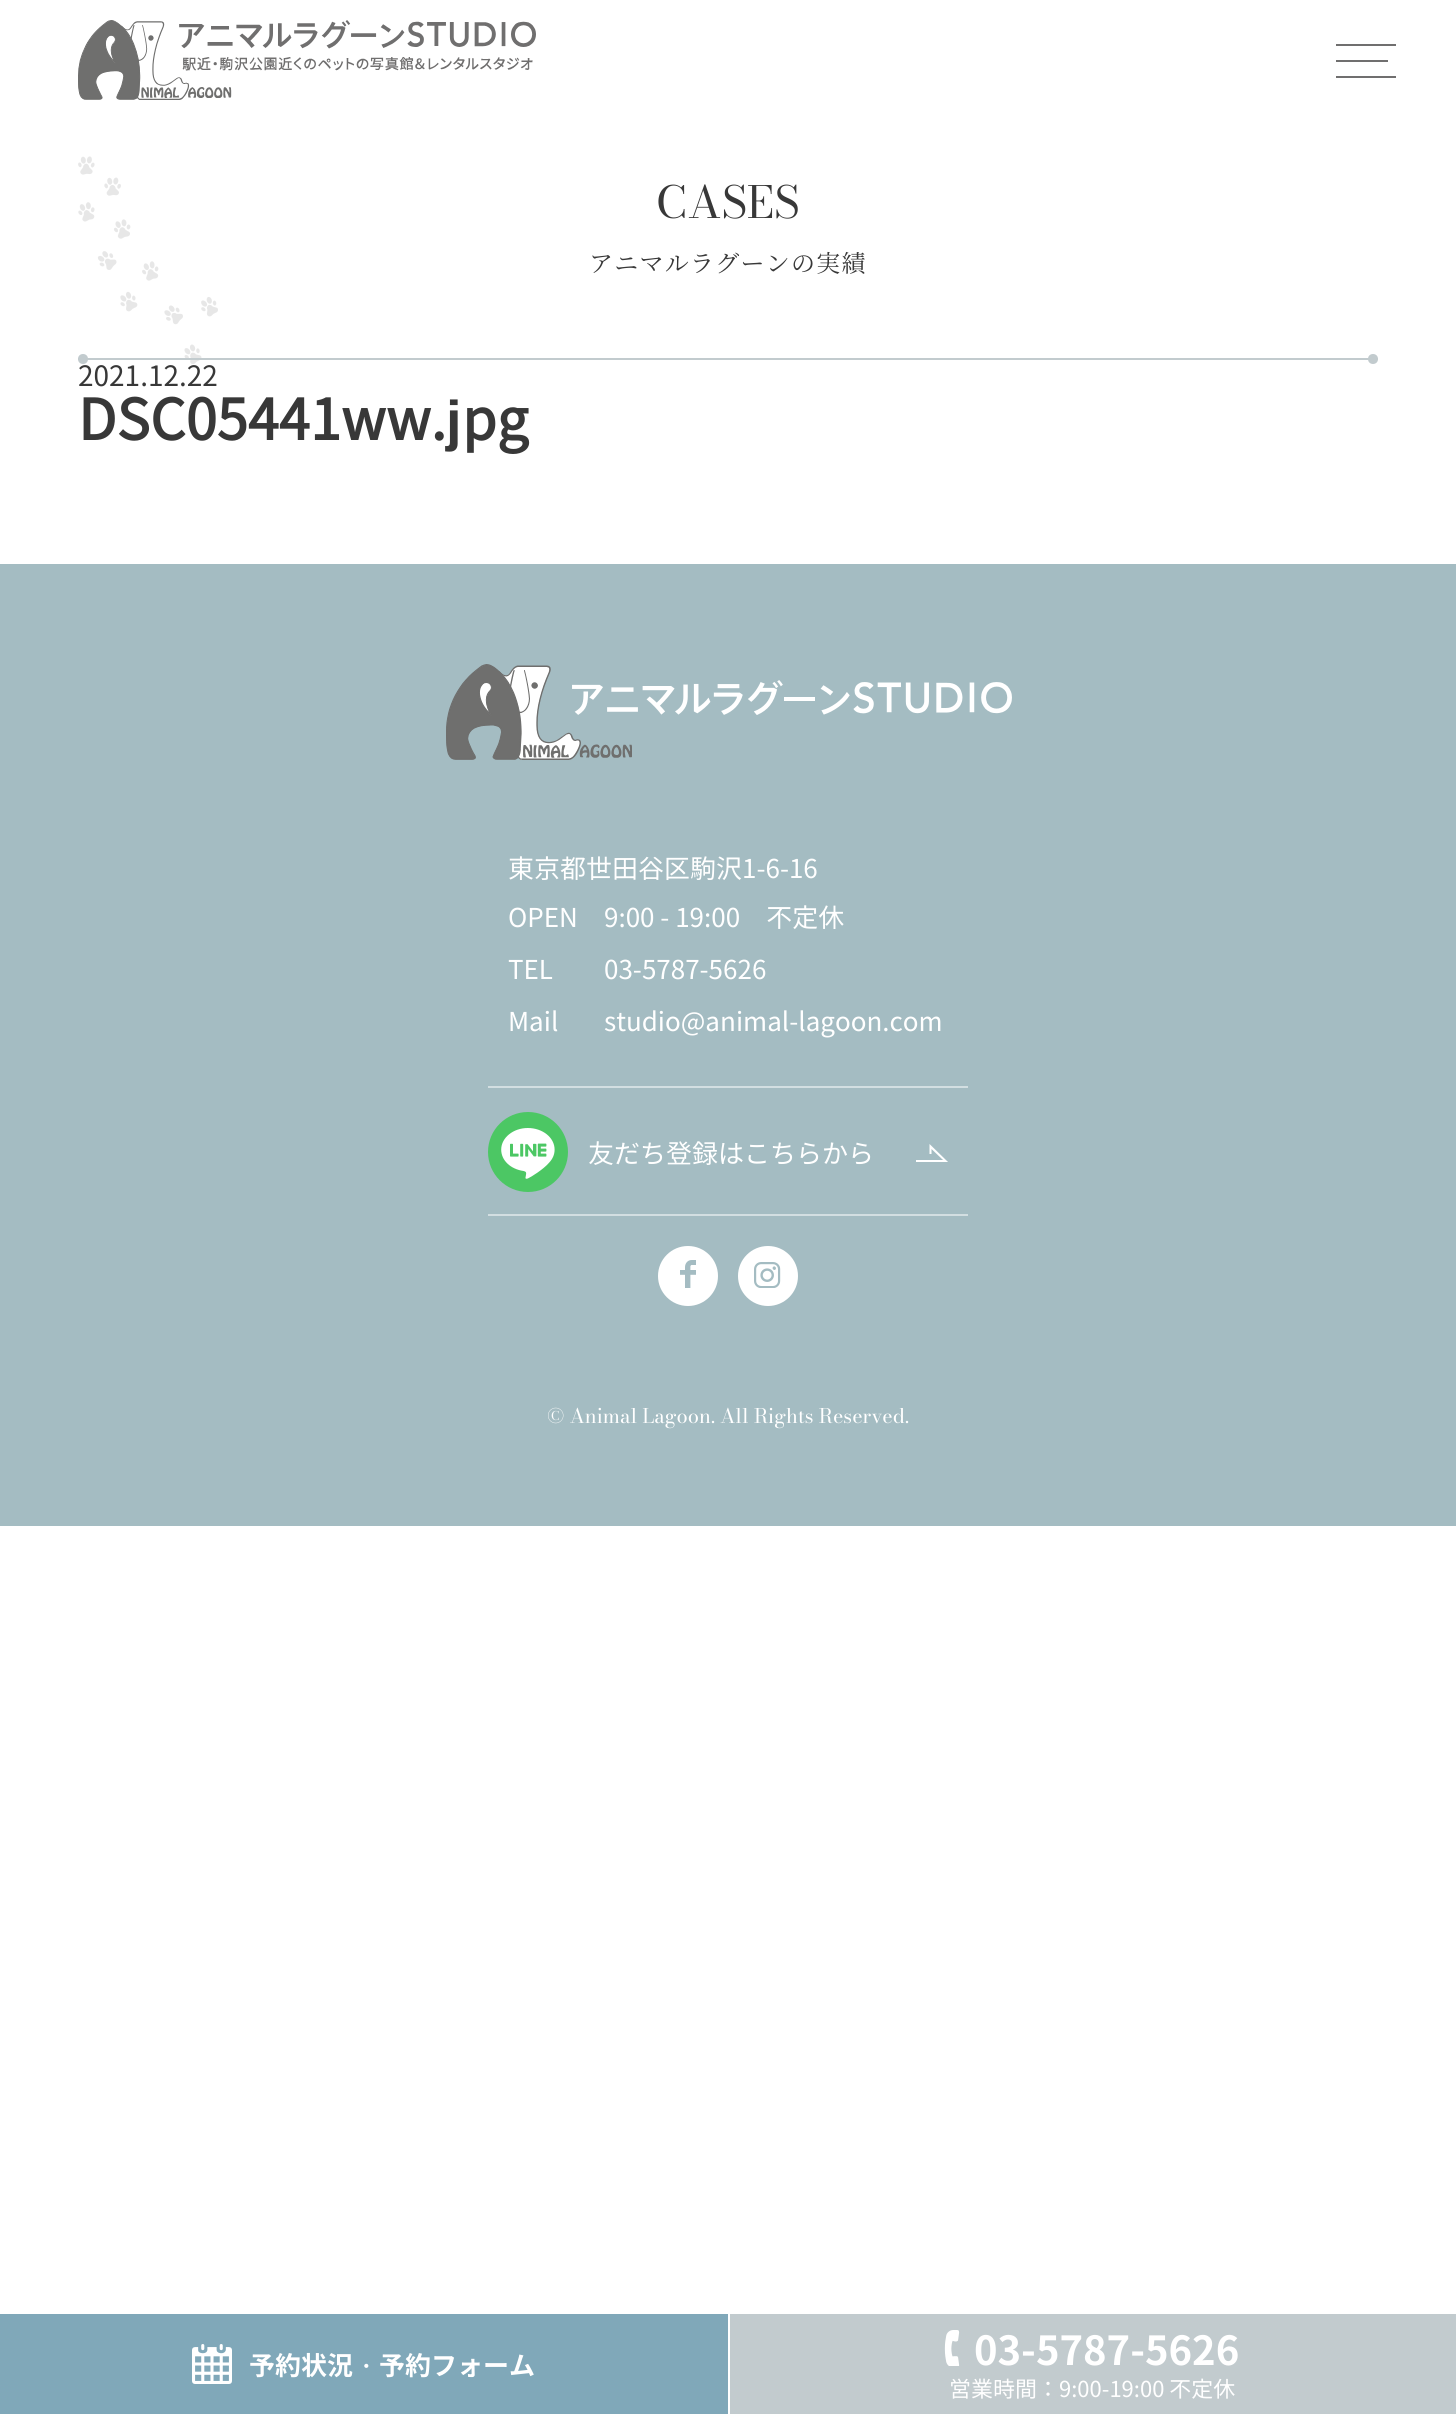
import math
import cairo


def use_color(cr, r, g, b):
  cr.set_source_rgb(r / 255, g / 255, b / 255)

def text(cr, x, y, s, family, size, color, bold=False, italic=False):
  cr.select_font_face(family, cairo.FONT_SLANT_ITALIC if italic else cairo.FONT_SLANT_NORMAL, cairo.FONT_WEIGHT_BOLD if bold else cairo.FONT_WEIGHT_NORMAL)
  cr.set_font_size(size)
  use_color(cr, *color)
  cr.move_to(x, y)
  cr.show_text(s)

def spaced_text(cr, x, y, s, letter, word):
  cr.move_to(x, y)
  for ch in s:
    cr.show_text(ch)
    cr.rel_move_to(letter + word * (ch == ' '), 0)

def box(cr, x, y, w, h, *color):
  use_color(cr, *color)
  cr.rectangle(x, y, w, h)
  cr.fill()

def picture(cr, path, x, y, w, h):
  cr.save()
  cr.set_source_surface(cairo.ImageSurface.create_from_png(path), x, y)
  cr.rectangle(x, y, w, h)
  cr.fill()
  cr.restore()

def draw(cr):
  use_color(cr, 255, 255, 255)
  cr.paint()
  picture(cr, "img_01.png", 78, 20, 458, 80)
  box(cr, 1336, 44, 60, 2, 112, 111, 111)
  box(cr, 1336, 60, 52, 2, 112, 111, 111)
  box(cr, 1336, 76, 60, 2, 112, 111, 111)
  use_color(cr, 194, 203, 206)
  cr.arc(83, 359, 5, 0, 2 * math.pi)
  cr.fill()
  picture(cr, "img_02.png", 78, 156, 140, 208)
  box(cr, 78, 358, 1300, 2, 194, 203, 206)
  cr.arc(1373, 359, 5, 0, 2 * math.pi)
  cr.fill()
  box(cr, 0, 564, 1456, 962, 164, 188, 194)
  picture(cr, "img_03.png", 446, 664, 186, 96)
  picture(cr, "img_04.png", 572, 680, 440, 35)
  box(cr, 488, 1086, 480, 2, 210, 222, 225)
  box(cr, 488, 1214, 480, 2, 210, 222, 225)
  use_color(cr, 255, 255, 255)
  cr.new_path()
  cr.move_to(929.5, 1144)
  cr.line_to(929.5, 1154)
  cr.line_to(931.5, 1154)
  cr.line_to(931.5, 1149)
  cr.line_to(943, 1160)
  cr.line_to(916, 1160)
  cr.line_to(916, 1162)
  cr.line_to(948, 1162)
  cr.close_path()
  cr.fill()
  picture(cr, "img_05.png", 488, 1112, 80, 80)
  cr.arc(688, 1276, 30, 0, 2 * math.pi)
  cr.fill()
  picture(cr, "img_06.png", 680, 1260, 16, 28)
  cr.arc(768, 1276, 30, 0, 2 * math.pi)
  cr.fill()
  picture(cr, "img_07.png", 754, 1262, 27, 26)
  box(cr, 0, 2314, 728, 100, 128, 168, 185)
  picture(cr, "img_08.png", 192, 2344, 40, 40)
  box(cr, 730, 2314, 726, 100, 194, 203, 206)
  picture(cr, "img_09.png", 944, 2330, 16, 36)
  text(cr, 656, 218, "CASES", "Bodoni Moda", 44, (56, 56, 56))
  cr.select_font_face("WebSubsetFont")
  cr.set_font_size(24)
  spaced_text(cr, 589, 272, "アニマルラグーンの実績", 1.25, 0)
  text(cr, 78, 386, "2021.12.22", "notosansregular", 28, (56, 56, 56))
  text(cr, 78, 440, "DSC05441ww.", "notosansregular", 56, (56, 56, 56), bold=True)
  text(cr, 446, 440, "j", "Liberation Sans", 56, (56, 56, 56), bold=True)
  text(cr, 462, 440, "pg", "notosansregular", 56, (56, 56, 56), bold=True)
  text(cr, 508, 878, "東京都世田谷区駒沢1-6-16", "notosansregular", 26, (255, 255, 255))
  text(cr, 508, 927, "OPEN", "notosansregular", 26, (255, 255, 255))
  text(cr, 604, 927, "9:00 - 19:00　不定休", "notosansregular", 26, (255, 255, 255))
  text(cr, 508, 979, "TEL", "notosansregular", 26, (255, 255, 255))
  text(cr, 604, 979, "03-5787-5626", "notosansregular", 26, (255, 255, 255))
  text(cr, 508, 1031, "Mail", "notosansregular", 26, (255, 255, 255))
  text(cr, 604, 1031, "studio@animal-lagoon.com", "notosansregular", 26, (255, 255, 255))
  text(cr, 588, 1163, "友だち登録はこちらから", "notosansregular", 26, (255, 255, 255))
  text(cr, 547, 1423, "© Animal Lagoon. All Rights Reserved.", "Bodoni Moda", 20, (255, 255, 255))
  text(cr, 249, 2375, "予約状況", "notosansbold", 26, (255, 255, 255), bold=True)
  text(cr, 353, 2375, "・", "WenQuanYi Zen Hei Medium", 26, (255, 255, 255))
  text(cr, 379, 2375, "予約フォーム", "notosansbold", 26, (255, 255, 255), bold=True)
  text(cr, 974, 2365, "03-5787-5626", "notosansbold", 40, (255, 255, 255), bold=True)
  text(cr, 949, 2397, "営業時間：9:00-19:00 不定休", "notosansregular", 22, (255, 255, 255))


surface = cairo.ImageSurface(cairo.FORMAT_RGB24, 1456, 2415)
cr = cairo.Context(surface)
options = cairo.FontOptions()
options.set_hint_metrics(cairo.HINT_METRICS_OFF)
options.set_hint_style(cairo.HINT_STYLE_NONE)
cr.set_font_options(options)
cr.set_miter_limit(4)
draw(cr)
surface.write_to_png("out.png")
